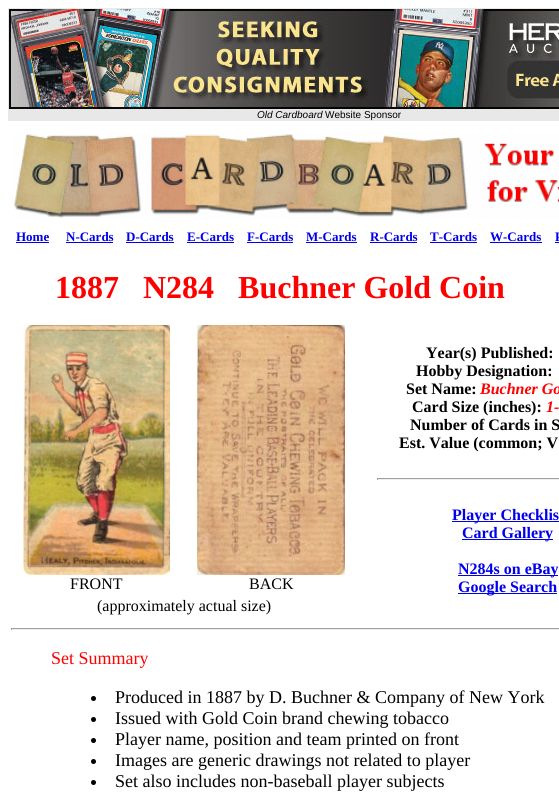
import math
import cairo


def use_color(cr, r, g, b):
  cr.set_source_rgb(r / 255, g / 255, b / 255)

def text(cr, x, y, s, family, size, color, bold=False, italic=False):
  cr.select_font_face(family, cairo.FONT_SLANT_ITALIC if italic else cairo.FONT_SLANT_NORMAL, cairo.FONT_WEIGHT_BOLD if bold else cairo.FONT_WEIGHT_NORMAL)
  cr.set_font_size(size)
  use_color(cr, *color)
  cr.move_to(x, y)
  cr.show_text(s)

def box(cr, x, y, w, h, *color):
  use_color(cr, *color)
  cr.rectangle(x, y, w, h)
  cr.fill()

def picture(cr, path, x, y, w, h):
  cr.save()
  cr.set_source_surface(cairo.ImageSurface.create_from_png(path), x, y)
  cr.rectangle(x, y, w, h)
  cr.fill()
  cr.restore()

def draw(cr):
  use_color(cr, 255, 255, 255)
  cr.paint()
  box(cr, 8, 8, 551, 113, 232, 232, 232)
  picture(cr, "img_01.png", 9, 9, 550, 100)
  picture(cr, "img_02.png", 14, 134, 545, 84)
  box(cr, 16, 242, 33, 1, 0, 0, 238)
  box(cr, 66, 242, 47, 1, 0, 0, 238)
  box(cr, 126, 242, 48, 1, 0, 0, 238)
  box(cr, 187, 242, 47, 1, 0, 0, 238)
  box(cr, 247, 242, 46, 1, 0, 0, 238)
  box(cr, 306, 242, 51, 1, 0, 0, 238)
  box(cr, 370, 242, 47, 1, 0, 0, 238)
  box(cr, 430, 242, 47, 1, 0, 0, 238)
  box(cr, 490, 242, 52, 1, 0, 0, 238)
  box(cr, 555, 242, 4, 1, 0, 0, 238)
  picture(cr, "img_03.png", 23, 325, 147, 250)
  picture(cr, "img_04.png", 197, 325, 148, 250)
  box(cr, 377, 478, 182, 1, 159, 159, 159)
  box(cr, 377, 479, 182, 1, 238, 238, 238)
  box(cr, 377, 478, 1, 2, 159, 159, 159)
  box(cr, 452, 521, 107, 1, 0, 0, 238)
  box(cr, 462, 539, 91, 1, 0, 0, 238)
  box(cr, 458, 575, 100, 1, 0, 0, 238)
  box(cr, 458, 593, 99, 1, 0, 0, 238)
  box(cr, 11, 628, 548, 1, 159, 159, 159)
  box(cr, 11, 629, 548, 1, 238, 238, 238)
  box(cr, 11, 628, 1, 2, 159, 159, 159)
  use_color(cr, 0, 0, 0)
  cr.arc(93.5, 698.5, 2.5, 0, 2 * math.pi)
  cr.fill()
  cr.arc(93.5, 719.5, 2.5, 0, 2 * math.pi)
  cr.fill()
  cr.arc(93.5, 740.5, 2.5, 0, 2 * math.pi)
  cr.fill()
  cr.arc(93.5, 761.5, 2.5, 0, 2 * math.pi)
  cr.fill()
  cr.arc(93.5, 782.5, 2.5, 0, 2 * math.pi)
  cr.fill()
  text(cr, 257, 118, "Old Cardboard", "Liberation Sans", 10, (0, 0, 0), italic=True)
  text(cr, 325, 118, "Website Sponsor", "Liberation Sans", 10, (0, 0, 0))
  text(cr, 16, 241, "Home", "Liberation Serif", 13, (0, 0, 238), bold=True)
  text(cr, 66, 241, "N-Cards", "Liberation Serif", 13, (0, 0, 238), bold=True)
  text(cr, 126, 241, "D-Cards", "Liberation Serif", 13, (0, 0, 238), bold=True)
  text(cr, 187, 241, "E-Cards", "Liberation Serif", 13, (0, 0, 238), bold=True)
  text(cr, 247, 241, "F-Cards", "Liberation Serif", 13, (0, 0, 238), bold=True)
  text(cr, 306, 241, "M-Cards", "Liberation Serif", 13, (0, 0, 238), bold=True)
  text(cr, 370, 241, "R-Cards", "Liberation Serif", 13, (0, 0, 238), bold=True)
  text(cr, 430, 241, "T-Cards", "Liberation Serif", 13, (0, 0, 238), bold=True)
  text(cr, 490, 241, "W-Cards", "Liberation Serif", 13, (0, 0, 238), bold=True)
  text(cr, 555, 241, "P", "Liberation Serif", 13, (0, 0, 238), bold=True)
  text(cr, 55, 298, "1887   N284   Buchner Gold Coin", "Liberation Serif", 32, (255, 0, 0), bold=True)
  text(cr, 70, 589, "FRONT", "Liberation Serif", 16, (0, 0, 0))
  text(cr, 249, 589, "BACK", "Liberation Serif", 16, (0, 0, 0))
  text(cr, 426, 358, "Year(s) Published:", "Liberation Serif", 16, (0, 0, 0), bold=True)
  text(cr, 416, 376, "Hobby Designation:", "Liberation Serif", 16, (0, 0, 0), bold=True)
  text(cr, 406, 394, "Set Name:", "Liberation Serif", 16, (0, 0, 0), bold=True)
  text(cr, 480, 394, "Buchner Go", "Liberation Serif", 16, (255, 0, 0), bold=True, italic=True)
  text(cr, 412, 412, "Card Size (inches):", "Liberation Serif", 16, (0, 0, 0), bold=True)
  text(cr, 546, 412, "1-", "Liberation Serif", 16, (255, 0, 0), bold=True, italic=True)
  text(cr, 410, 430, "Number of Cards in S", "Liberation Serif", 16, (0, 0, 0), bold=True)
  text(cr, 399, 448, "Est. Value (common; V", "Liberation Serif", 16, (0, 0, 0), bold=True)
  text(cr, 452, 520, "Player Checklis", "Liberation Serif", 16, (0, 0, 238), bold=True)
  text(cr, 462, 538, "Card Gallery", "Liberation Serif", 16, (0, 0, 238), bold=True)
  text(cr, 458, 574, "N284s on eBay", "Liberation Serif", 16, (0, 0, 238), bold=True)
  text(cr, 458, 592, "Google Search", "Liberation Serif", 16, (0, 0, 238), bold=True)
  text(cr, 97, 611, "(approximately actual size)", "Liberation Serif", 16, (0, 0, 0))
  text(cr, 51, 664, "Set Summary", "Liberation Serif", 18, (255, 0, 0))
  text(cr, 115, 703, "Produced in 1887 by D. Buchner & Company of New York", "Liberation Serif", 18, (0, 0, 0))
  text(cr, 115, 724, "Issued with Gold Coin brand chewing tobacco", "Liberation Serif", 18, (0, 0, 0))
  text(cr, 115, 745, "Player name, position and team printed on front", "Liberation Serif", 18, (0, 0, 0))
  text(cr, 115, 766, "Images are generic drawings not related to player", "Liberation Serif", 18, (0, 0, 0))
  text(cr, 115, 787, "Set also includes non-baseball player subjects", "Liberation Serif", 18, (0, 0, 0))


surface = cairo.ImageSurface(cairo.FORMAT_RGB24, 559, 800)
cr = cairo.Context(surface)
options = cairo.FontOptions()
options.set_hint_metrics(cairo.HINT_METRICS_OFF)
options.set_hint_style(cairo.HINT_STYLE_NONE)
cr.set_font_options(options)
cr.set_miter_limit(4)
draw(cr)
surface.write_to_png("out.png")
